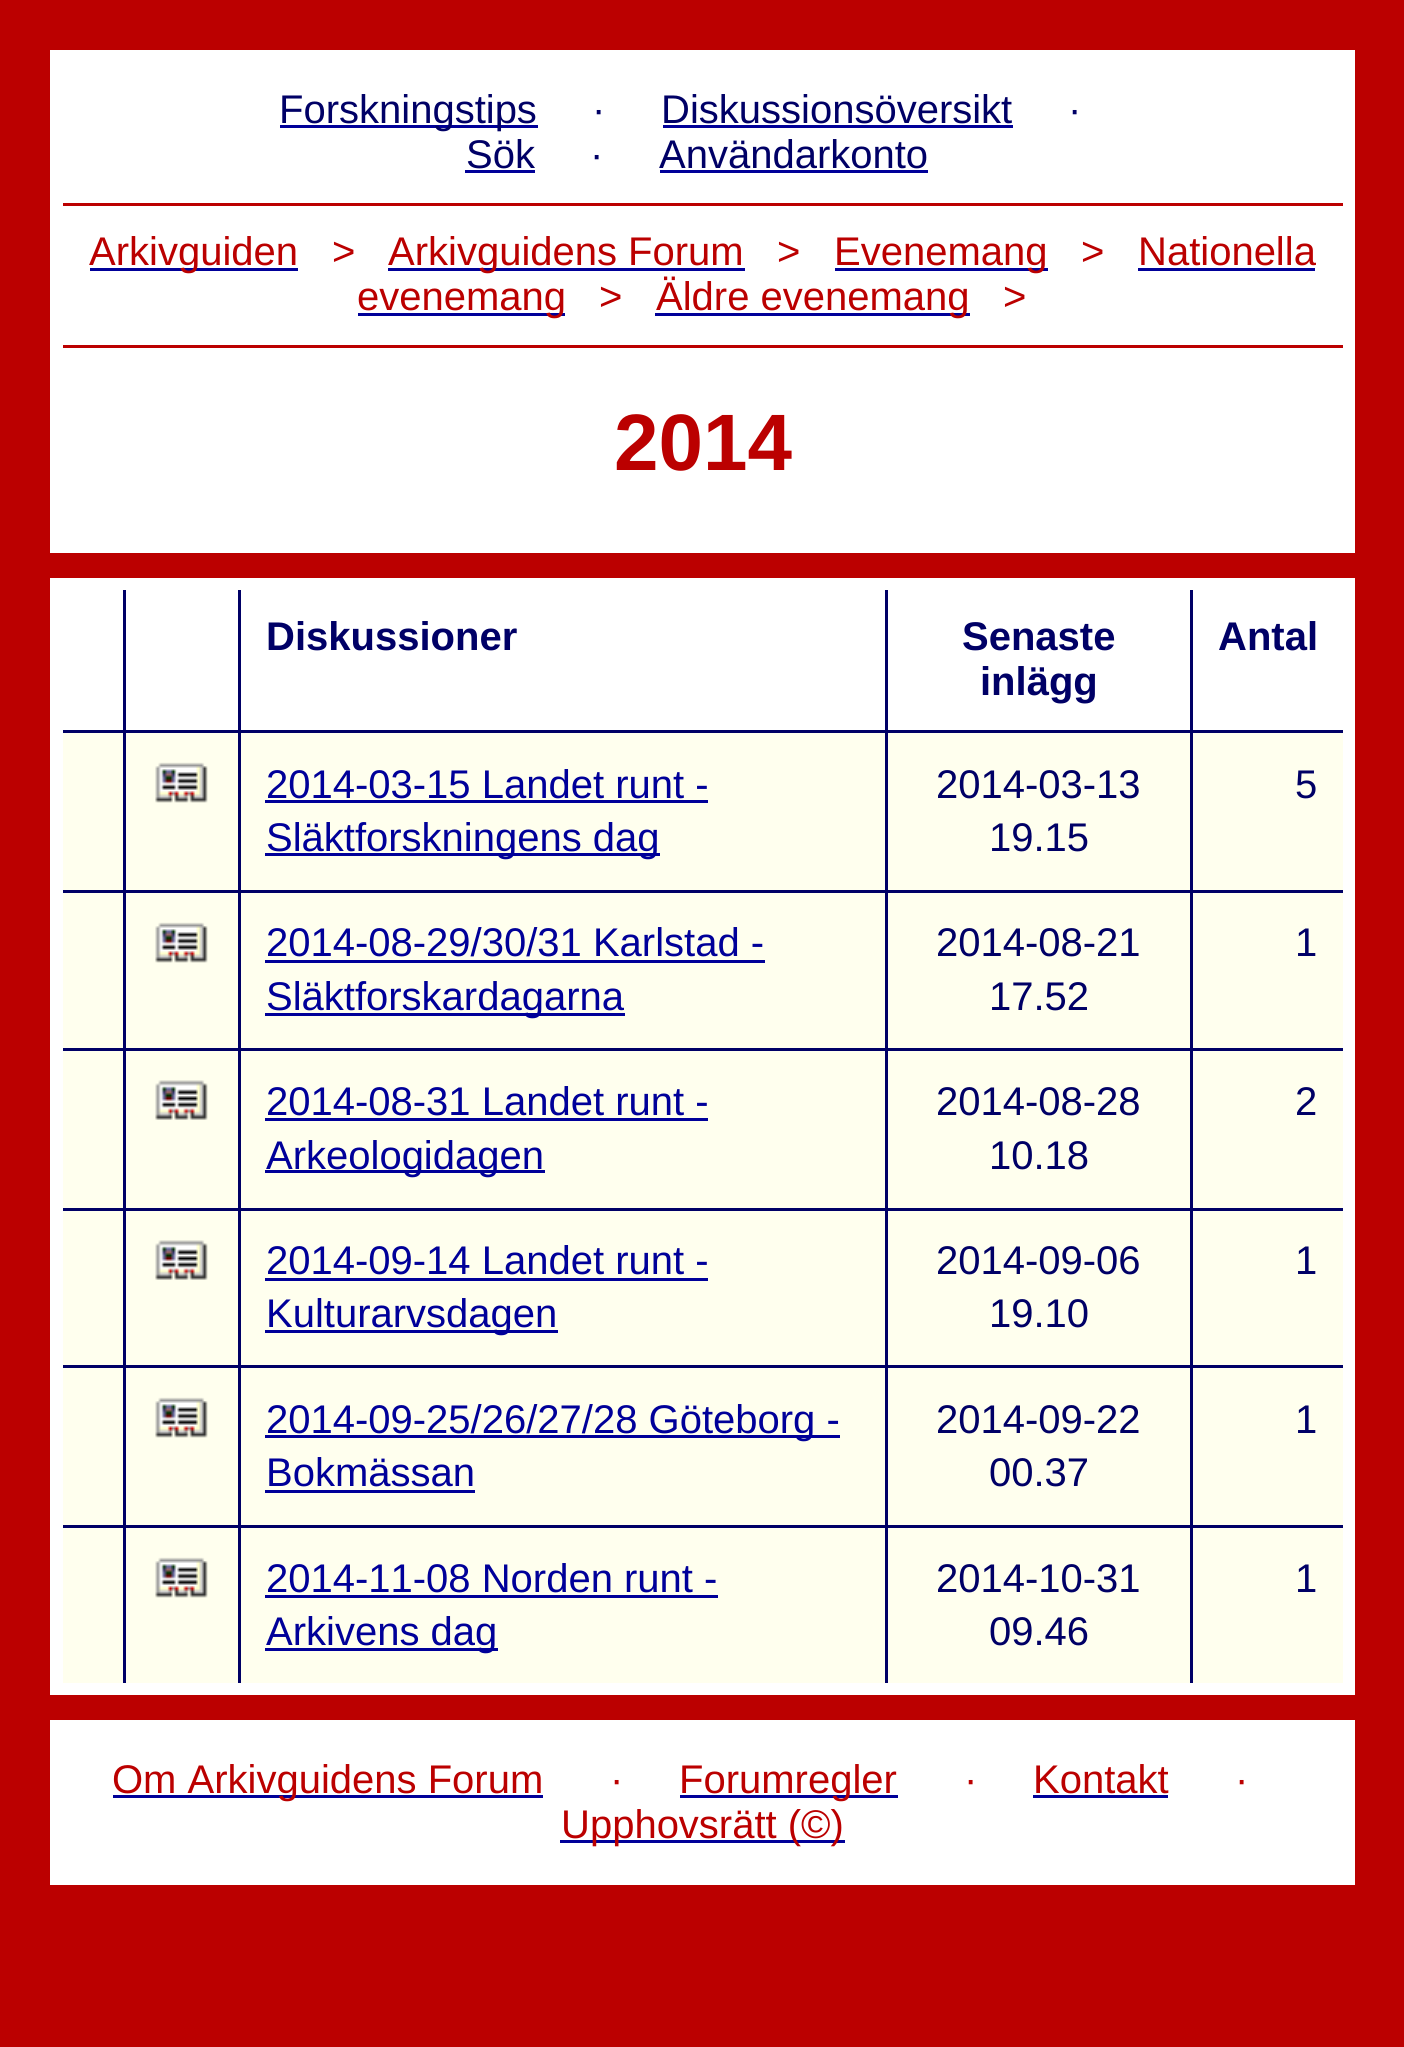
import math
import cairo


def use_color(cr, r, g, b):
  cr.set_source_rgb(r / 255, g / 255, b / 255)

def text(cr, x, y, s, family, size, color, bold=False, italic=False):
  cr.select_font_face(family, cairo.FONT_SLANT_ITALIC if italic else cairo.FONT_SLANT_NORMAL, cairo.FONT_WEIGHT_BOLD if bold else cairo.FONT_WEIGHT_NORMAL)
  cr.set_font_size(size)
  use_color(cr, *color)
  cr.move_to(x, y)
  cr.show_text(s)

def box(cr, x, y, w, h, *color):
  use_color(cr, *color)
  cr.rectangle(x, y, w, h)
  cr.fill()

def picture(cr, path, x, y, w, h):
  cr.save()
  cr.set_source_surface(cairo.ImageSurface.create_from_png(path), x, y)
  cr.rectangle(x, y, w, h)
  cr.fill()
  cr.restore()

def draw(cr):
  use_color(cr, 187, 0, 0)
  cr.paint()
  box(cr, 1343, 50, 12, 490, 255, 255, 255)
  box(cr, 63, 540, 1292, 13, 255, 255, 255)
  box(cr, 50, 50, 13, 503, 255, 255, 255)
  box(cr, 63, 50, 1280, 153, 255, 255, 255)
  box(cr, 280, 125, 258, 3, 0, 0, 153)
  box(cr, 663, 125, 350, 3, 0, 0, 153)
  box(cr, 465, 170, 70, 3, 0, 0, 153)
  box(cr, 660, 170, 268, 3, 0, 0, 153)
  box(cr, 63, 206, 1280, 139, 255, 255, 255)
  box(cr, 90, 268, 208, 3, 0, 0, 153)
  box(cr, 388, 268, 357, 3, 0, 0, 153)
  box(cr, 835, 268, 213, 3, 0, 0, 153)
  box(cr, 1138, 268, 177, 3, 0, 0, 153)
  box(cr, 358, 313, 207, 3, 0, 0, 153)
  box(cr, 655, 313, 315, 3, 0, 0, 153)
  box(cr, 63, 348, 1280, 192, 255, 255, 255)
  box(cr, 1190, 730, 160, 3, 0, 0, 102)
  box(cr, 1190, 890, 160, 3, 0, 0, 102)
  box(cr, 1190, 1048, 160, 3, 0, 0, 102)
  box(cr, 1190, 1208, 160, 3, 0, 0, 102)
  box(cr, 1190, 1365, 160, 3, 0, 0, 102)
  box(cr, 1190, 1525, 160, 3, 0, 0, 102)
  box(cr, 1190, 1525, 3, 165, 0, 0, 102)
  box(cr, 885, 1525, 308, 3, 0, 0, 102)
  box(cr, 1190, 1365, 3, 163, 0, 0, 102)
  box(cr, 885, 1365, 308, 3, 0, 0, 102)
  box(cr, 1190, 1208, 3, 160, 0, 0, 102)
  box(cr, 885, 1208, 308, 3, 0, 0, 102)
  box(cr, 1190, 1048, 3, 162, 0, 0, 102)
  box(cr, 885, 1048, 308, 3, 0, 0, 102)
  box(cr, 1190, 890, 3, 160, 0, 0, 102)
  box(cr, 885, 890, 308, 3, 0, 0, 102)
  box(cr, 1190, 730, 3, 163, 0, 0, 102)
  box(cr, 885, 730, 308, 3, 0, 0, 102)
  box(cr, 885, 1525, 3, 165, 0, 0, 102)
  box(cr, 238, 1525, 650, 3, 0, 0, 102)
  box(cr, 885, 1365, 3, 163, 0, 0, 102)
  box(cr, 238, 1365, 650, 3, 0, 0, 102)
  box(cr, 885, 1208, 3, 160, 0, 0, 102)
  box(cr, 238, 1208, 650, 3, 0, 0, 102)
  box(cr, 885, 1048, 3, 162, 0, 0, 102)
  box(cr, 238, 1048, 650, 3, 0, 0, 102)
  box(cr, 885, 890, 3, 160, 0, 0, 102)
  box(cr, 238, 890, 650, 3, 0, 0, 102)
  box(cr, 885, 730, 3, 163, 0, 0, 102)
  box(cr, 238, 730, 650, 3, 0, 0, 102)
  box(cr, 238, 1525, 3, 165, 0, 0, 102)
  box(cr, 123, 1525, 117, 3, 0, 0, 102)
  box(cr, 238, 1365, 3, 163, 0, 0, 102)
  box(cr, 123, 1365, 117, 3, 0, 0, 102)
  box(cr, 238, 1208, 3, 160, 0, 0, 102)
  box(cr, 123, 1208, 117, 3, 0, 0, 102)
  box(cr, 238, 1048, 3, 162, 0, 0, 102)
  box(cr, 123, 1048, 117, 3, 0, 0, 102)
  box(cr, 238, 890, 3, 160, 0, 0, 102)
  box(cr, 123, 890, 117, 3, 0, 0, 102)
  box(cr, 238, 730, 3, 163, 0, 0, 102)
  box(cr, 123, 730, 117, 3, 0, 0, 102)
  box(cr, 123, 1525, 3, 165, 0, 0, 102)
  box(cr, 55, 1525, 70, 3, 0, 0, 102)
  box(cr, 123, 1365, 3, 163, 0, 0, 102)
  box(cr, 55, 1365, 70, 3, 0, 0, 102)
  box(cr, 123, 1208, 3, 160, 0, 0, 102)
  box(cr, 55, 1208, 70, 3, 0, 0, 102)
  box(cr, 123, 1048, 3, 162, 0, 0, 102)
  box(cr, 55, 1048, 70, 3, 0, 0, 102)
  box(cr, 123, 890, 3, 160, 0, 0, 102)
  box(cr, 55, 890, 70, 3, 0, 0, 102)
  box(cr, 123, 730, 3, 163, 0, 0, 102)
  box(cr, 55, 730, 70, 3, 0, 0, 102)
  box(cr, 123, 583, 3, 150, 0, 0, 102)
  box(cr, 238, 583, 3, 150, 0, 0, 102)
  box(cr, 885, 583, 3, 150, 0, 0, 102)
  box(cr, 1190, 583, 3, 150, 0, 0, 102)
  box(cr, 63, 578, 1280, 12, 255, 255, 255)
  box(cr, 1343, 578, 12, 1105, 255, 255, 255)
  box(cr, 63, 1683, 1292, 12, 255, 255, 255)
  box(cr, 50, 578, 13, 1117, 255, 255, 255)
  box(cr, 63, 590, 60, 140, 255, 255, 255)
  box(cr, 126, 590, 112, 140, 255, 255, 255)
  box(cr, 241, 590, 644, 140, 255, 255, 255)
  box(cr, 888, 590, 302, 140, 255, 255, 255)
  box(cr, 1193, 590, 150, 140, 255, 255, 255)
  box(cr, 63, 733, 60, 157, 255, 255, 238)
  box(cr, 126, 733, 112, 157, 255, 255, 238)
  picture(cr, "img_01.png", 155, 762, 53, 41)
  box(cr, 241, 733, 644, 157, 255, 255, 238)
  box(cr, 265, 800, 443, 3, 0, 0, 153)
  box(cr, 265, 853, 395, 3, 0, 0, 153)
  box(cr, 888, 733, 302, 157, 255, 255, 238)
  box(cr, 1193, 733, 150, 157, 255, 255, 238)
  box(cr, 63, 893, 60, 155, 255, 255, 238)
  box(cr, 126, 893, 112, 155, 255, 255, 238)
  picture(cr, "img_01.png", 155, 922, 53, 41)
  box(cr, 241, 893, 644, 155, 255, 255, 238)
  box(cr, 265, 960, 500, 3, 0, 0, 153)
  box(cr, 265, 1013, 360, 3, 0, 0, 153)
  box(cr, 888, 893, 302, 155, 255, 255, 238)
  box(cr, 1193, 893, 150, 155, 255, 255, 238)
  box(cr, 63, 1051, 60, 157, 255, 255, 238)
  box(cr, 126, 1051, 112, 157, 255, 255, 238)
  picture(cr, "img_02.png", 155, 1080, 53, 40)
  box(cr, 241, 1051, 644, 157, 255, 255, 238)
  box(cr, 265, 1118, 443, 3, 0, 0, 153)
  box(cr, 265, 1170, 280, 3, 0, 0, 153)
  box(cr, 888, 1051, 302, 157, 255, 255, 238)
  box(cr, 1193, 1051, 150, 157, 255, 255, 238)
  box(cr, 63, 1211, 60, 154, 255, 255, 238)
  box(cr, 126, 1211, 112, 154, 255, 255, 238)
  picture(cr, "img_02.png", 155, 1240, 53, 40)
  box(cr, 241, 1211, 644, 154, 255, 255, 238)
  box(cr, 265, 1278, 443, 3, 0, 0, 153)
  box(cr, 265, 1330, 293, 3, 0, 0, 153)
  box(cr, 888, 1211, 302, 154, 255, 255, 238)
  box(cr, 1193, 1211, 150, 154, 255, 255, 238)
  box(cr, 63, 1368, 60, 157, 255, 255, 238)
  box(cr, 126, 1368, 112, 157, 255, 255, 238)
  picture(cr, "img_01.png", 155, 1397, 53, 41)
  box(cr, 241, 1368, 644, 157, 255, 255, 238)
  box(cr, 265, 1435, 575, 3, 0, 0, 153)
  box(cr, 265, 1490, 210, 3, 0, 0, 153)
  box(cr, 888, 1368, 302, 157, 255, 255, 238)
  box(cr, 1193, 1368, 150, 157, 255, 255, 238)
  box(cr, 63, 1528, 60, 155, 255, 255, 238)
  box(cr, 126, 1528, 112, 155, 255, 255, 238)
  picture(cr, "img_03.png", 155, 1557, 53, 41)
  box(cr, 241, 1528, 644, 155, 255, 255, 238)
  box(cr, 265, 1595, 453, 3, 0, 0, 153)
  box(cr, 265, 1648, 233, 3, 0, 0, 153)
  box(cr, 888, 1528, 302, 155, 255, 255, 238)
  box(cr, 1193, 1528, 150, 155, 255, 255, 238)
  box(cr, 50, 1720, 1305, 165, 255, 255, 255)
  box(cr, 113, 1795, 430, 3, 0, 0, 153)
  box(cr, 680, 1795, 218, 3, 0, 0, 153)
  box(cr, 1033, 1795, 135, 3, 0, 0, 153)
  box(cr, 560, 1840, 285, 3, 0, 0, 153)
  text(cr, 279, 123, "Forskningstips", "Liberation Sans", 40, (0, 0, 102))
  text(cr, 592, 123, "·", "Liberation Sans", 40, (0, 0, 102))
  text(cr, 661, 123, "Diskussionsöversikt", "Liberation Sans", 40, (0, 0, 102))
  text(cr, 1068, 123, "·", "Liberation Sans", 40, (0, 0, 102))
  text(cr, 466, 168, "Sök", "Liberation Sans", 40, (0, 0, 102))
  text(cr, 590, 168, "·", "Liberation Sans", 40, (0, 0, 102))
  text(cr, 659, 168, "Användarkonto", "Liberation Sans", 40, (0, 0, 102))
  text(cr, 89, 265, "Arkivguiden", "Liberation Sans", 40, (187, 0, 0))
  text(cr, 332, 265, ">", "Liberation Sans", 40, (187, 0, 0))
  text(cr, 388, 265, "Arkivguidens Forum", "Liberation Sans", 40, (187, 0, 0))
  text(cr, 777, 265, ">", "Liberation Sans", 40, (187, 0, 0))
  text(cr, 834, 265, "Evenemang", "Liberation Sans", 40, (187, 0, 0))
  text(cr, 1081, 265, ">", "Liberation Sans", 40, (187, 0, 0))
  text(cr, 1138, 265, "Nationella", "Liberation Sans", 40, (187, 0, 0))
  text(cr, 357, 310, "evenemang", "Liberation Sans", 40, (187, 0, 0))
  text(cr, 599, 310, ">", "Liberation Sans", 40, (187, 0, 0))
  text(cr, 656, 310, "Äldre evenemang", "Liberation Sans", 40, (187, 0, 0))
  text(cr, 1003, 310, ">", "Liberation Sans", 40, (187, 0, 0))
  text(cr, 614, 470, "2014", "Liberation Sans", 80, (187, 0, 0), bold=True)
  text(cr, 266, 650, "Diskussioner", "Liberation Sans", 40, (0, 0, 102), bold=True)
  text(cr, 962, 650, "Senaste", "Liberation Sans", 40, (0, 0, 102), bold=True)
  text(cr, 980, 695, "inlägg", "Liberation Sans", 40, (0, 0, 102), bold=True)
  text(cr, 1218, 650, "Antal", "Liberation Sans", 40, (0, 0, 102), bold=True)
  text(cr, 266, 798, "2014-03-15 Landet runt -", "Liberation Sans", 40, (0, 0, 153))
  text(cr, 266, 851, "Släktforskningens dag", "Liberation Sans", 40, (0, 0, 153))
  text(cr, 936, 798, "2014-03-13", "Liberation Sans", 40, (0, 0, 102))
  text(cr, 989, 851, "19.15", "Liberation Sans", 40, (0, 0, 102))
  text(cr, 1295, 798, "5", "Liberation Sans", 40, (0, 0, 102))
  text(cr, 266, 956, "2014-08-29/30/31 Karlstad -", "Liberation Sans", 40, (0, 0, 153))
  text(cr, 266, 1010, "Släktforskardagarna", "Liberation Sans", 40, (0, 0, 153))
  text(cr, 936, 956, "2014-08-21", "Liberation Sans", 40, (0, 0, 102))
  text(cr, 989, 1010, "17.52", "Liberation Sans", 40, (0, 0, 102))
  text(cr, 1295, 956, "1", "Liberation Sans", 40, (0, 0, 102))
  text(cr, 266, 1115, "2014-08-31 Landet runt -", "Liberation Sans", 40, (0, 0, 153))
  text(cr, 266, 1169, "Arkeologidagen", "Liberation Sans", 40, (0, 0, 153))
  text(cr, 936, 1115, "2014-08-28", "Liberation Sans", 40, (0, 0, 102))
  text(cr, 989, 1169, "10.18", "Liberation Sans", 40, (0, 0, 102))
  text(cr, 1295, 1115, "2", "Liberation Sans", 40, (0, 0, 102))
  text(cr, 266, 1274, "2014-09-14 Landet runt -", "Liberation Sans", 40, (0, 0, 153))
  text(cr, 266, 1327, "Kulturarvsdagen", "Liberation Sans", 40, (0, 0, 153))
  text(cr, 936, 1274, "2014-09-06", "Liberation Sans", 40, (0, 0, 102))
  text(cr, 989, 1327, "19.10", "Liberation Sans", 40, (0, 0, 102))
  text(cr, 1295, 1274, "1", "Liberation Sans", 40, (0, 0, 102))
  text(cr, 266, 1433, "2014-09-25/26/27/28 Göteborg -", "Liberation Sans", 40, (0, 0, 153))
  text(cr, 266, 1486, "Bokmässan", "Liberation Sans", 40, (0, 0, 153))
  text(cr, 936, 1433, "2014-09-22", "Liberation Sans", 40, (0, 0, 102))
  text(cr, 989, 1486, "00.37", "Liberation Sans", 40, (0, 0, 102))
  text(cr, 1295, 1433, "1", "Liberation Sans", 40, (0, 0, 102))
  text(cr, 266, 1592, "2014-11-08 Norden runt -", "Liberation Sans", 40, (0, 0, 153))
  text(cr, 266, 1645, "Arkivens dag", "Liberation Sans", 40, (0, 0, 153))
  text(cr, 936, 1592, "2014-10-31", "Liberation Sans", 40, (0, 0, 102))
  text(cr, 989, 1645, "09.46", "Liberation Sans", 40, (0, 0, 102))
  text(cr, 1295, 1592, "1", "Liberation Sans", 40, (0, 0, 102))
  text(cr, 112, 1793, "Om Arkivguidens Forum", "Liberation Sans", 40, (187, 0, 0))
  text(cr, 610, 1793, "·", "Liberation Sans", 40, (187, 0, 0))
  text(cr, 679, 1793, "Forumregler", "Liberation Sans", 40, (187, 0, 0))
  text(cr, 964, 1793, "·", "Liberation Sans", 40, (187, 0, 0))
  text(cr, 1033, 1793, "Kontakt", "Liberation Sans", 40, (187, 0, 0))
  text(cr, 1235, 1793, "·", "Liberation Sans", 40, (187, 0, 0))
  text(cr, 561, 1838, "Upphovsrätt (©)", "Liberation Sans", 40, (187, 0, 0))


surface = cairo.ImageSurface(cairo.FORMAT_RGB24, 1404, 2047)
cr = cairo.Context(surface)
options = cairo.FontOptions()
options.set_hint_metrics(cairo.HINT_METRICS_OFF)
options.set_hint_style(cairo.HINT_STYLE_NONE)
cr.set_font_options(options)
cr.set_miter_limit(4)
draw(cr)
surface.write_to_png("out.png")
